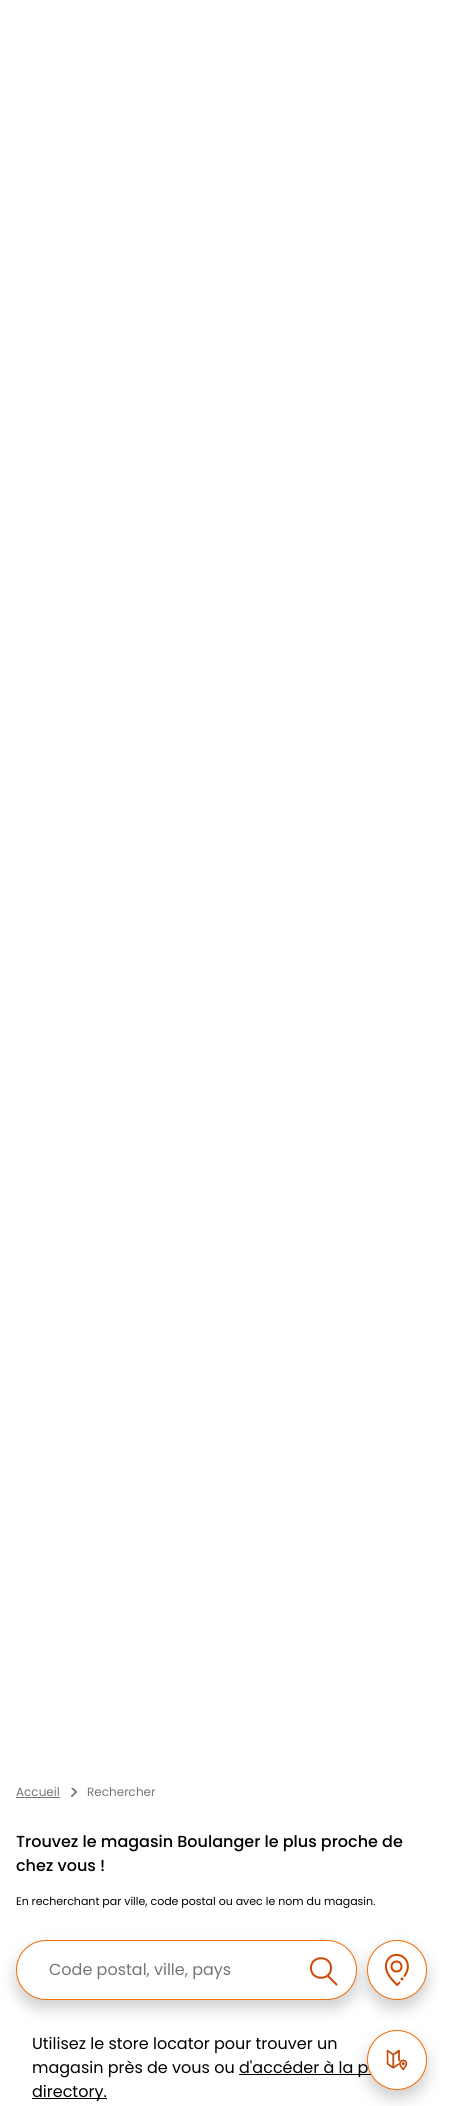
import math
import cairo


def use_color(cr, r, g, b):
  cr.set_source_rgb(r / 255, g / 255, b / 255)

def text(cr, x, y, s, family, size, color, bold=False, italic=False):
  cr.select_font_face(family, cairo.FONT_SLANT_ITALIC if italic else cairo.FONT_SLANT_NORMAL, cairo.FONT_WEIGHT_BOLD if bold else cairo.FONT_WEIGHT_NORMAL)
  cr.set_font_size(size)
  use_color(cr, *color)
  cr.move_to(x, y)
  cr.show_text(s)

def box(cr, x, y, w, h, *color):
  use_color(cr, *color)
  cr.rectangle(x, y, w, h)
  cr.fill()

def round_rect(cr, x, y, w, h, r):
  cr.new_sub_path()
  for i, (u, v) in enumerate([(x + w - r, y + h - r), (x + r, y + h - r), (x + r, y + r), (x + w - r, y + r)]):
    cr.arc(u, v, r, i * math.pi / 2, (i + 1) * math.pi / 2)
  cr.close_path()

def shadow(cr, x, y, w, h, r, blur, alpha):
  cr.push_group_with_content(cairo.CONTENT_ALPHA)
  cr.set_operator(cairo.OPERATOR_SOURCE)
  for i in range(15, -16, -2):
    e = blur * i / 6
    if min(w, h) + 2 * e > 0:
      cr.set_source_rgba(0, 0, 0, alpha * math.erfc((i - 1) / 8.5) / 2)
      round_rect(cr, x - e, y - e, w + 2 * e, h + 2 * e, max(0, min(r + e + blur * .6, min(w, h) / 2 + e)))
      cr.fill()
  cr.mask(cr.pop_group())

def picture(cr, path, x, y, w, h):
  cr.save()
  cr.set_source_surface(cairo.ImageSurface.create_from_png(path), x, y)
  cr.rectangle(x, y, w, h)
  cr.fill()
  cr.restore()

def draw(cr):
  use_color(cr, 255, 255, 255)
  cr.paint()
  box(cr, 16, 1797, 44, 1, 117, 117, 117)
  picture(cr, "img_01.png", 71, 1788, 6, 9)
  use_color(cr, 59, 59, 59)
  shadow(cr, 16, 1948, 341, 60, 30, 7.5, 0.25)
  use_color(cr, 255, 255, 255)
  round_rect(cr, 16.5, 1940.5, 340, 59, 29.5)
  cr.fill_preserve()
  use_color(cr, 245, 106, 0)
  cr.set_line_width(1)
  cr.stroke()
  cr.new_path()
  cr.move_to(331, 1968)
  cr.curve_to(331, 1981, 311, 1981, 311, 1968)
  cr.curve_to(311, 1955, 331, 1955, 331, 1968)
  cr.close_path()
  cr.move_to(328, 1976)
  cr.line_to(337, 1985)
  cr.close_path()
  use_color(cr, 209, 70, 0)
  cr.set_line_width(2)
  cr.stroke()
  use_color(cr, 59, 59, 59)
  shadow(cr, 367, 1948, 60, 60, 30, 7.5, 0.25)
  use_color(cr, 255, 255, 255)
  cr.arc(397, 1970, 29.5, 0, 2 * math.pi)
  cr.fill_preserve()
  use_color(cr, 245, 106, 0)
  cr.set_line_width(1)
  cr.stroke()
  cr.arc(396.5, 1966.5, 5, 0, 2 * math.pi)
  use_color(cr, 209, 70, 0)
  cr.set_line_width(2)
  cr.stroke()
  cr.save()
  cr.rectangle(385, 1954, 24, 32)
  cr.clip()
  cr.new_path()
  cr.move_to(404.5, 1976)
  cr.curve_to(416.5, 1958, 393.5, 1947.5, 387, 1961)
  cr.curve_to(384, 1967.5, 387.5, 1974, 391.5, 1979)
  cr.line_to(397, 1985)
  cr.line_to(399.5, 1982.5)
  cr.set_line_cap(cairo.LINE_CAP_ROUND)
  cr.stroke()
  cr.restore()
  cr.arc(402, 1978.9, 1.5, 0, 2 * math.pi)
  cr.fill()
  box(cr, 239, 2074, 132, 1, 0, 0, 0)
  box(cr, 32, 2098, 75, 1, 0, 0, 0)
  use_color(cr, 59, 59, 59)
  shadow(cr, 367, 2038, 60, 60, 30, 7.5, 0.25)
  text(cr, 16, 1796, "Accueil", "Poppins", 12, (117, 117, 117))
  text(cr, 87, 1796, "Rechercher", "Poppins", 12, (117, 117, 117))
  text(cr, 16, 1847, "Trouvez le magasin Boulanger le plus proche de", "Poppins Medium", 16, (0, 0, 0))
  text(cr, 16, 1871, "chez vous !", "Poppins Medium", 16, (0, 0, 0))
  text(cr, 16, 1905, "En recherchant par ville, code postal ou avec le nom du magasin.", "Poppins", 11, (0, 0, 0))
  text(cr, 49, 1975, "Code postal, ville, pays", "Poppins", 16, (117, 117, 117))
  text(cr, 32, 2049, "Utilisez le store locator pour trouver un", "Poppins", 16, (0, 0, 0))
  text(cr, 32, 2073, "magasin près de vous ou", "Poppins", 16, (0, 0, 0))
  text(cr, 239, 2073, "d'accéder à la p", "Poppins", 16, (0, 0, 0))
  text(cr, 32, 2097, "directory.", "Poppins", 16, (0, 0, 0))
  use_color(cr, 255, 255, 255)
  cr.new_path()
  cr.arc(397, 2060, 29.5, 0, 2 * math.pi)
  cr.fill_preserve()
  use_color(cr, 245, 106, 0)
  cr.set_line_width(1)
  cr.stroke()
  picture(cr, "img_02.png", 386, 2049, 22, 22)


surface = cairo.ImageSurface(cairo.FORMAT_RGB24, 461, 2106)
cr = cairo.Context(surface)
options = cairo.FontOptions()
options.set_hint_metrics(cairo.HINT_METRICS_OFF)
options.set_hint_style(cairo.HINT_STYLE_NONE)
cr.set_font_options(options)
cr.set_miter_limit(4)
draw(cr)
surface.write_to_png("out.png")
